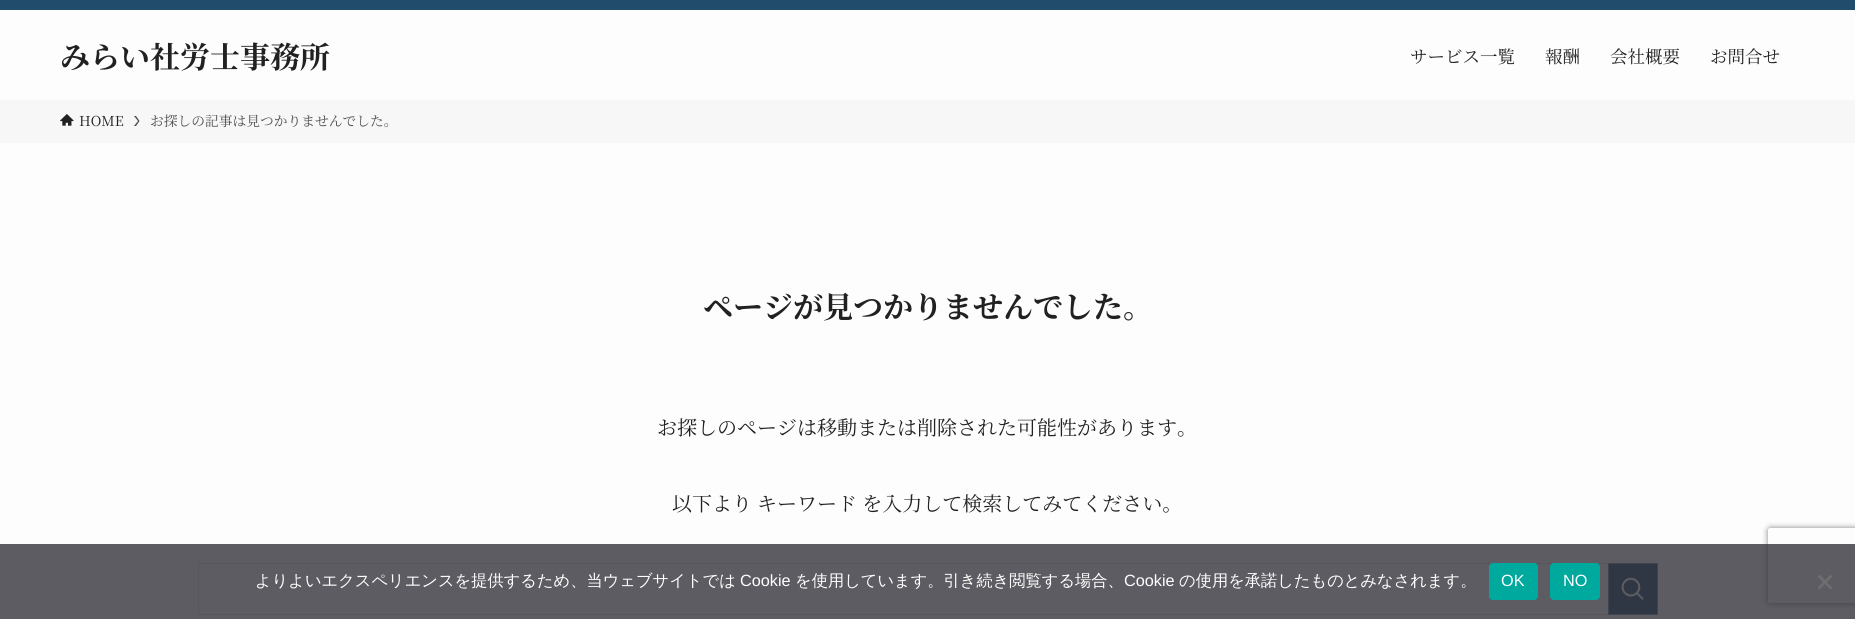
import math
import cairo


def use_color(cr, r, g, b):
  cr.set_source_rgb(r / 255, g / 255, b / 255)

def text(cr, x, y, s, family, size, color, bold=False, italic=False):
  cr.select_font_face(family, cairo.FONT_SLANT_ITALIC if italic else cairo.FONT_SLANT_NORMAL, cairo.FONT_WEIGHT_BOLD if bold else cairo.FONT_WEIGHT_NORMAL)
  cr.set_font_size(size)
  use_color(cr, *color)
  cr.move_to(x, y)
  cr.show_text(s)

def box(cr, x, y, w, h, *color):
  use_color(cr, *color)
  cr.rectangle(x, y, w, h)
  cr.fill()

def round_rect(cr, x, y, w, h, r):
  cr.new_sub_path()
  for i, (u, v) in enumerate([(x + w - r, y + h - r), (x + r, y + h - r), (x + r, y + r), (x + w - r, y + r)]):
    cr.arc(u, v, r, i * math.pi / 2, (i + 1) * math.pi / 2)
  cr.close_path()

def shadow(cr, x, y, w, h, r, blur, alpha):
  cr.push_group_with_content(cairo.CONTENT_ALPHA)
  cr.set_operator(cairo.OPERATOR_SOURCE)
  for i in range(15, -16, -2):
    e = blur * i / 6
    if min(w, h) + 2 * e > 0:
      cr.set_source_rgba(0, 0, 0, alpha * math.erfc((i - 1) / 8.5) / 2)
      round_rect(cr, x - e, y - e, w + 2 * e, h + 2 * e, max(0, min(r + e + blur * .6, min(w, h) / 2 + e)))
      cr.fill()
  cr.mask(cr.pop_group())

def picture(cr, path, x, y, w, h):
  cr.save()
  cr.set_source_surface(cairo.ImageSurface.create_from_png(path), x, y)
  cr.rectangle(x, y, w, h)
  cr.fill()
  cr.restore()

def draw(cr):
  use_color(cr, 253, 253, 253)
  cr.paint()
  box(cr, 0, 0, 1855, 10, 33, 76, 107)
  box(cr, 0, 100, 1855, 43, 247, 247, 247)
  picture(cr, "img_01.png", 60, 114, 14, 12)
  use_color(cr, 76, 76, 76)
  cr.new_path()
  cr.move_to(136, 116)
  cr.line_to(134, 116)
  cr.line_to(138, 121)
  cr.line_to(134, 126)
  cr.line_to(136, 126)
  cr.line_to(139.5, 121)
  cr.close_path()
  cr.fill()
  cr.rectangle(198.5, 563.5, 1459, 51)
  use_color(cr, 227, 227, 227)
  cr.set_line_width(1)
  cr.stroke()
  use_color(cr, 33, 76, 107)
  cr.rectangle(1608.5, 563.5, 49, 51)
  cr.fill_preserve()
  use_color(cr, 116, 138, 153)
  cr.stroke()
  picture(cr, "img_02.png", 1621, 577, 23, 23)
  cr.save()
  cr.set_fill_rule(cairo.FILL_RULE_EVEN_ODD)
  cr.new_path()
  cr.move_to(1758, 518)
  cr.line_to(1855, 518)
  cr.line_to(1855, 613)
  cr.line_to(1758, 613)
  cr.close_path()
  cr.move_to(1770.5, 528)
  cr.line_to(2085.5, 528)
  cr.curve_to(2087, 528, 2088, 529, 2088, 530.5)
  cr.line_to(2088, 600.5)
  cr.curve_to(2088, 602, 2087, 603, 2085.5, 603)
  cr.line_to(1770.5, 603)
  cr.curve_to(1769, 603, 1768, 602, 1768, 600.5)
  cr.line_to(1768, 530.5)
  cr.curve_to(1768, 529, 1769, 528, 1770.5, 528)
  cr.close_path()
  cr.clip()
  use_color(cr, 128, 128, 128)
  shadow(cr, 1768, 528, 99, 75, 2.5, 3, 1)
  cr.restore()
  cr.set_source_rgba(0.196, 0.196, 0.227, 0.79)
  cr.rectangle(0, 544, 1855, 75)
  cr.fill()
  use_color(cr, 0, 169, 157)
  round_rect(cr, 1489, 563, 49, 37, 4)
  cr.fill()
  round_rect(cr, 1550, 563, 50, 37, 4)
  cr.fill()
  use_color(cr, 110, 110, 113)
  cr.new_path()
  cr.move_to(1830.5, 574.5)
  cr.line_to(1832.5, 576.5)
  cr.line_to(1819.5, 589.5)
  cr.line_to(1817.5, 588)
  cr.close_path()
  cr.fill()
  cr.new_path()
  cr.move_to(1817.5, 576.5)
  cr.line_to(1819.5, 574.5)
  cr.line_to(1832.5, 588)
  cr.line_to(1830.5, 589.5)
  cr.close_path()
  cr.fill()
  text(cr, 60, 68, "みらい社労士事務所", "Noto Serif JP", 30, (33, 33, 33), bold=True)
  text(cr, 1410, 63, "サービス一覧", "Noto Serif JP", 17.5, (33, 33, 33))
  text(cr, 1545, 63, "報酬", "Noto Serif JP", 17.5, (33, 33, 33))
  text(cr, 1610, 63, "会社概要", "Noto Serif JP", 17.5, (33, 33, 33))
  text(cr, 1710, 63, "お問合せ", "Noto Serif JP", 17.5, (33, 33, 33))
  text(cr, 79, 126, "HOME", "Noto Serif JP", 13.75, (33, 33, 33))
  text(cr, 150, 126, "お探しの記事は見つかりませんでした。", "Noto Serif JP", 13.75, (76, 76, 76))
  text(cr, 703, 318, "ページが見つかりませんでした。", "Noto Serif JP", 30, (33, 33, 33), bold=True)
  text(cr, 657, 435, "お探しのページは移動または削除された可能性があります。", "Noto Serif JP", 20, (33, 33, 33))
  text(cr, 672, 511, "以下より キーワード を入力して検索してみてください。", "Noto Serif JP", 20, (33, 33, 33))
  text(cr, 255, 586, "よりよいエクスペリエンスを提供するため、当ウェブサイトでは", "WenQuanYi Zen Hei Medium", 16.25, (255, 255, 255))
  text(cr, 740, 586, "Cookie", "Liberation Sans", 16.25, (255, 255, 255))
  text(cr, 795, 586, "を使用しています。引き続き閲覧する場合、", "WenQuanYi Zen Hei Medium", 16.25, (255, 255, 255))
  text(cr, 1124, 586, "Cookie", "Liberation Sans", 16.25, (255, 255, 255))
  text(cr, 1179, 586, "の使用を承諾したものとみなされます。", "WenQuanYi Zen Hei Medium", 16.25, (255, 255, 255))
  text(cr, 1501, 586, "OK", "Liberation Sans", 16.25, (255, 255, 255))
  text(cr, 1563, 586, "NO", "Liberation Sans", 16.25, (255, 255, 255))


surface = cairo.ImageSurface(cairo.FORMAT_RGB24, 1855, 619)
cr = cairo.Context(surface)
options = cairo.FontOptions()
options.set_hint_metrics(cairo.HINT_METRICS_OFF)
options.set_hint_style(cairo.HINT_STYLE_NONE)
cr.set_font_options(options)
cr.set_miter_limit(4)
draw(cr)
surface.write_to_png("out.png")
